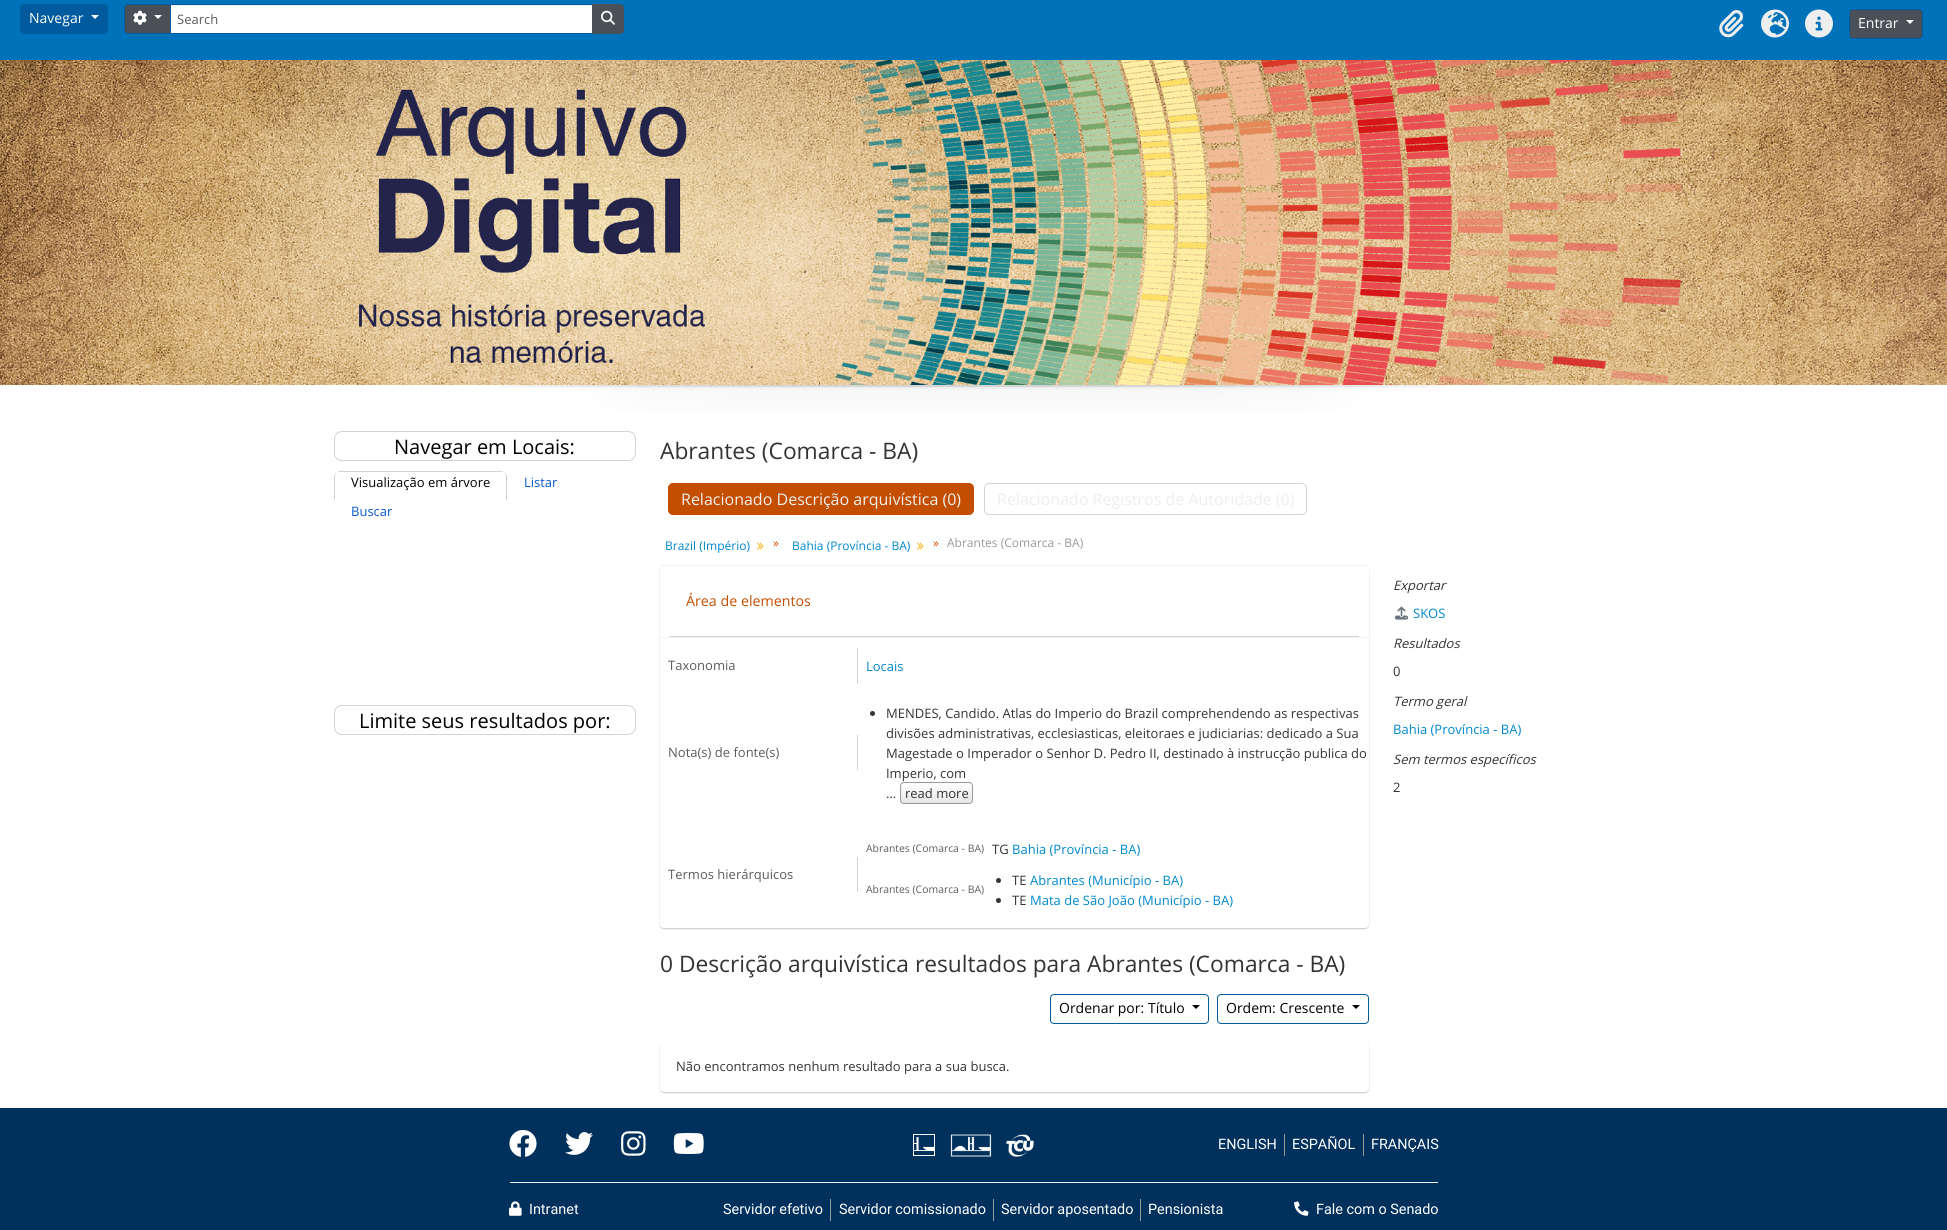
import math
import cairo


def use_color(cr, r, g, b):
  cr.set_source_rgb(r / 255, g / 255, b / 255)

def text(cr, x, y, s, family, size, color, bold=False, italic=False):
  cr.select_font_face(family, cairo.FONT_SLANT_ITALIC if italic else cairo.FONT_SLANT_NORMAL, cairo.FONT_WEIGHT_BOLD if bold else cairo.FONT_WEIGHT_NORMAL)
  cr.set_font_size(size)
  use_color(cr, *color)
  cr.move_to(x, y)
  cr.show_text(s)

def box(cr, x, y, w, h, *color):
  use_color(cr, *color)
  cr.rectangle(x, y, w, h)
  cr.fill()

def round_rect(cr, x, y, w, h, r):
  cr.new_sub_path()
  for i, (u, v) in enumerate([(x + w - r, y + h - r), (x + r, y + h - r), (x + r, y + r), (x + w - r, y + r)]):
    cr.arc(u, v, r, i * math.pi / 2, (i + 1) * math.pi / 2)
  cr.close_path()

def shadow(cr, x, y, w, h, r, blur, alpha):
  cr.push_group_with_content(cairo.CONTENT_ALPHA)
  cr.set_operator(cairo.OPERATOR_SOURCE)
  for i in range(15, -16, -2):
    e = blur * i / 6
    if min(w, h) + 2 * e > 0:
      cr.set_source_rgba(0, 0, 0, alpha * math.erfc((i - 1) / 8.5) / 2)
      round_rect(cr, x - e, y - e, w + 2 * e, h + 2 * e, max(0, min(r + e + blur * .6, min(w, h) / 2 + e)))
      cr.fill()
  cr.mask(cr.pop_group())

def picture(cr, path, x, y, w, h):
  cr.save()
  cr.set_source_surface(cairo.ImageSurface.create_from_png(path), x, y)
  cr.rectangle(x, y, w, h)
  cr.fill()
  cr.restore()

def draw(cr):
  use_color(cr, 255, 255, 255)
  cr.paint()
  box(cr, 0, 0, 1947, 60, 0, 114, 185)
  use_color(cr, 0, 91, 158)
  round_rect(cr, 20.5, 4.5, 87, 29, 3.5)
  cr.fill_preserve()
  cr.set_line_width(1)
  cr.stroke()
  use_color(cr, 255, 255, 255)
  cr.new_path()
  cr.move_to(91, 15)
  cr.line_to(99, 15)
  cr.line_to(95, 19)
  cr.close_path()
  cr.fill()
  box(cr, 171, 6, 421, 27, 255, 255, 255)
  box(cr, 171, 5, 421, 1, 236, 236, 236)
  cr.rectangle(170.5, 4.5, 422, 29)
  use_color(cr, 0, 91, 158)
  cr.stroke()
  use_color(cr, 73, 80, 87)
  cr.new_path()
  cr.move_to(128, 4.5)
  cr.line_to(170.5, 4.5)
  cr.line_to(170.5, 33.5)
  cr.line_to(128, 33.5)
  cr.curve_to(126, 33.5, 124.5, 32, 124.5, 30)
  cr.line_to(124.5, 8)
  cr.curve_to(124.5, 6, 126, 4.5, 128, 4.5)
  cr.close_path()
  cr.fill_preserve()
  use_color(cr, 0, 91, 158)
  cr.stroke()
  picture(cr, "img_01.png", 133, 10, 14, 15)
  use_color(cr, 255, 255, 255)
  cr.new_path()
  cr.move_to(154, 15)
  cr.line_to(162, 15)
  cr.line_to(158, 19)
  cr.close_path()
  cr.fill()
  use_color(cr, 73, 80, 87)
  cr.new_path()
  cr.move_to(592.5, 4.5)
  cr.line_to(620, 4.5)
  cr.curve_to(622, 4.5, 623.5, 6, 623.5, 8)
  cr.line_to(623.5, 30)
  cr.curve_to(623.5, 32, 622, 33.5, 620, 33.5)
  cr.line_to(592.5, 33.5)
  cr.close_path()
  cr.fill_preserve()
  cr.stroke()
  picture(cr, "img_02.png", 601, 10, 14, 15)
  picture(cr, "img_03.png", 1719, 10, 25, 28)
  picture(cr, "img_04.png", 1761, 9, 28, 29)
  picture(cr, "img_05.png", 1805, 9, 28, 29)
  round_rect(cr, 1849.5, 9.5, 73, 29, 3.5)
  cr.fill_preserve()
  use_color(cr, 0, 91, 158)
  cr.stroke()
  use_color(cr, 255, 255, 255)
  cr.new_path()
  cr.move_to(1906, 20)
  cr.line_to(1914, 20)
  cr.line_to(1910, 24)
  cr.close_path()
  cr.fill()
  picture(cr, "img_06.png", 0, 60, 1947, 325)
  picture(cr, "img_07.png", 500, 385, 946, 27)
  round_rect(cr, 334.5, 431.5, 301, 29, 7.5)
  use_color(cr, 206, 212, 218)
  cr.stroke()
  cr.new_path()
  cr.move_to(340, 471)
  cr.curve_to(338, 471, 337, 472, 336, 473)
  cr.curve_to(337, 472, 338, 472, 340, 472)
  cr.line_to(501, 472)
  cr.curve_to(502, 472, 504, 472, 505, 473)
  cr.curve_to(504, 472, 502, 471, 501, 471)
  cr.close_path()
  cr.fill()
  cr.new_path()
  cr.move_to(507, 501)
  cr.line_to(507, 477)
  cr.curve_to(507, 475.5, 506, 474, 505, 473)
  cr.line_to(504.5, 473.5)
  cr.curve_to(505.5, 474, 506, 475.5, 506, 477)
  cr.line_to(506, 500)
  cr.close_path()
  cr.fill()
  use_color(cr, 255, 255, 255)
  cr.new_path()
  cr.move_to(507, 501)
  cr.line_to(506, 500)
  cr.line_to(335, 500)
  cr.line_to(334, 501)
  cr.close_path()
  cr.fill()
  use_color(cr, 206, 212, 218)
  cr.new_path()
  cr.move_to(334, 501)
  cr.line_to(335, 500)
  cr.line_to(335, 477)
  cr.curve_to(335, 475.5, 335.5, 474, 336.5, 473.5)
  cr.line_to(336, 473)
  cr.curve_to(335, 474, 334, 475.5, 334, 477)
  cr.close_path()
  cr.fill()
  round_rect(cr, 334.5, 705.5, 301, 29, 7.5)
  cr.stroke()
  use_color(cr, 196, 78, 0)
  round_rect(cr, 668.5, 483.5, 305, 31, 4.5)
  cr.fill_preserve()
  cr.stroke()
  round_rect(cr, 984.5, 483.5, 322, 31, 4.5)
  use_color(cr, 206, 212, 218)
  cr.stroke()
  picture(cr, "img_08.png", 757, 542, 7, 8)
  picture(cr, "img_08.png", 917, 542, 7, 8)
  use_color(cr, 0, 0, 0)
  shadow(cr, 660, 566, 709, 363, 4, 0.5, 0.2)
  use_color(cr, 255, 255, 255)
  round_rect(cr, 660, 565, 709, 363, 4)
  cr.fill()
  box(cr, 660, 565, 709, 1, 242, 242, 242)
  box(cr, 660, 637, 709, 1, 242, 242, 242)
  box(cr, 670, 636, 689, 1, 206, 212, 218)
  box(cr, 857, 648, 1, 36, 206, 212, 218)
  box(cr, 857, 735, 1, 35, 206, 212, 218)
  use_color(cr, 51, 51, 51)
  cr.arc(872.5, 713.5, 2.5, 0, 2 * math.pi)
  cr.fill()
  cr.save()
  round_rect(cr, 900, 782, 73, 22, 4)
  cr.clip()
  gradient = cairo.LinearGradient(937, 783, 937, 803)
  gradient.add_color_stop_rgba(0, 1, 1, 1, 1)
  gradient.add_color_stop_rgba(1, 0.902, 0.902, 0.902, 1)
  cr.set_source(gradient)
  cr.rectangle(900, 783, 73, 20)
  cr.fill()
  cr.restore()
  round_rect(cr, 900.5, 782.5, 72, 21, 3.5)
  use_color(cr, 153, 153, 153)
  cr.stroke()
  box(cr, 857, 857, 1, 35, 206, 212, 218)
  use_color(cr, 51, 51, 51)
  cr.arc(998.5, 880.5, 2.5, 0, 2 * math.pi)
  cr.fill()
  cr.arc(998.5, 900.5, 2.5, 0, 2 * math.pi)
  cr.fill()
  round_rect(cr, 1050.5, 994.5, 158, 29, 3.5)
  use_color(cr, 0, 91, 158)
  cr.stroke()
  use_color(cr, 0, 0, 0)
  cr.new_path()
  cr.move_to(1192, 1005)
  cr.line_to(1200, 1005)
  cr.line_to(1196, 1009)
  cr.close_path()
  cr.fill()
  round_rect(cr, 1217.5, 994.5, 151, 29, 3.5)
  use_color(cr, 0, 91, 158)
  cr.stroke()
  use_color(cr, 0, 0, 0)
  cr.new_path()
  cr.move_to(1352, 1005)
  cr.line_to(1360, 1005)
  cr.line_to(1356, 1009)
  cr.close_path()
  cr.fill()
  use_color(cr, 0, 0, 0)
  shadow(cr, 660, 1041, 709, 52, 4, 0.5, 0.2)
  use_color(cr, 255, 255, 255)
  round_rect(cr, 660, 1040, 709, 52, 4)
  cr.fill()
  picture(cr, "img_09.png", 1395, 606, 13, 14)
  box(cr, 0, 1108, 1947, 122, 0, 48, 92)
  picture(cr, "img_10.png", 509, 1130, 28, 27)
  picture(cr, "img_11.png", 565, 1132, 28, 23)
  picture(cr, "img_12.png", 621, 1131, 25, 25)
  picture(cr, "img_13.png", 673, 1133, 31, 21)
  picture(cr, "img_14.png", 913, 1134, 22, 22)
  picture(cr, "img_15.png", 950, 1134, 42, 23)
  picture(cr, "img_16.png", 1006, 1134, 28, 23)
  box(cr, 1284, 1134, 1, 22, 153, 153, 153)
  box(cr, 1363, 1134, 1, 22, 153, 153, 153)
  box(cr, 510, 1182, 928, 1, 241, 241, 241)
  picture(cr, "img_17.png", 509, 1201, 13, 15)
  box(cr, 830, 1199, 1, 22, 153, 153, 153)
  box(cr, 993, 1199, 1, 22, 153, 153, 153)
  box(cr, 1140, 1199, 1, 22, 153, 153, 153)
  picture(cr, "img_18.png", 1294, 1201, 15, 15)
  text(cr, 29, 23, "Navegar", "Open Sans", 14, (255, 255, 255))
  text(cr, 177, 24, "Search", "Open Sans", 13, (89, 92, 95))
  text(cr, 1858, 28, "Entrar", "Open Sans", 14, (255, 255, 255))
  text(cr, 394, 454, "Navegar em Locais:", "Open Sans", 20, (0, 0, 0))
  text(cr, 351, 487, "Visualização em árvore", "Open Sans", 13, (0, 0, 0))
  text(cr, 524, 487, "Listar", "Open Sans", 13, (10, 88, 202))
  text(cr, 351, 516, "Buscar", "Open Sans", 13, (10, 88, 202))
  text(cr, 359, 728, "Limite seus resultados por:", "Open Sans", 20, (0, 0, 0))
  text(cr, 660, 459, "Abrantes (Comarca - BA)", "Open Sans", 22.75, (51, 51, 51))
  text(cr, 681, 505, "Relacionado Descrição arquivística (0)", "Open Sans", 16, (238, 238, 238))
  text(cr, 997, 505, "Relacionado Registros de Autoridade (0)", "Open Sans", 16, (238, 238, 238))
  text(cr, 665, 550, "Brazil (Império)", "Open Sans", 12, (0, 136, 204))
  text(cr, 773, 547, "»", "Open Sans", 12, (196, 78, 0))
  text(cr, 792, 550, "Bahia (Província - BA)", "Open Sans", 12, (0, 136, 204))
  text(cr, 933, 547, "»", "Open Sans", 12, (196, 78, 0))
  text(cr, 947, 547, "Abrantes (Comarca - BA)", "Open Sans", 12, (153, 153, 153))
  text(cr, 686, 606, "Área de elementos", "Open Sans", 14.25, (196, 78, 0))
  text(cr, 668, 670, "Taxonomia", "Open Sans", 13, (89, 92, 95))
  text(cr, 866, 671, "Locais", "Open Sans", 13, (0, 136, 204))
  text(cr, 668, 757, "Nota(s) de fonte(s)", "Open Sans", 13, (89, 92, 95))
  text(cr, 886, 718, "MENDES, Candido. Atlas do Imperio do Brazil comprehendendo as respectivas", "Open Sans", 13, (51, 51, 51))
  text(cr, 886, 738, "divisões administrativas, ecclesiasticas, eleitoraes e judiciarias: dedicado a Sua", "Open Sans", 13, (51, 51, 51))
  text(cr, 886, 758, "Magestade o Imperador o Senhor D. Pedro II, destinado à instrucção publica do", "Open Sans", 13, (51, 51, 51))
  text(cr, 886, 778, "Imperio, com", "Open Sans", 13, (51, 51, 51))
  text(cr, 886, 798, "…", "Open Sans", 13, (51, 51, 51))
  text(cr, 905, 798, "read more", "Open Sans", 13, (51, 51, 51))
  text(cr, 668, 879, "Termos hierárquicos", "Open Sans", 13, (89, 92, 95))
  text(cr, 866, 852, "Abrantes (Comarca - BA)", "Open Sans", 10.4, (89, 92, 95))
  text(cr, 992, 854, "TG", "Open Sans", 13, (51, 51, 51))
  text(cr, 1012, 854, "Bahia (Província - BA)", "Open Sans", 13, (0, 136, 204))
  text(cr, 866, 893, "Abrantes (Comarca - BA)", "Open Sans", 10.4, (89, 92, 95))
  text(cr, 1012, 885, "TE", "Open Sans", 13, (51, 51, 51))
  text(cr, 1030, 885, "Abrantes (Município - BA)", "Open Sans", 13, (0, 136, 204))
  text(cr, 1012, 905, "TE", "Open Sans", 13, (51, 51, 51))
  text(cr, 1030, 905, "Mata de São João (Município - BA)", "Open Sans", 13, (0, 136, 204))
  text(cr, 660, 972, "0 Descrição arquivística resultados para Abrantes (Comarca - BA)", "Open Sans", 22.75, (51, 51, 51))
  text(cr, 1059, 1013, "Ordenar por: Título", "Open Sans", 14, (0, 0, 0))
  text(cr, 1226, 1013, "Ordem: Crescente", "Open Sans", 14, (0, 0, 0))
  text(cr, 676, 1071, "Não encontramos nenhum resultado para a sua busca.", "Open Sans", 13, (51, 51, 51))
  text(cr, 1393, 590, "Exportar", "Open Sans", 13, (51, 51, 51), italic=True)
  text(cr, 1413, 618, "SKOS", "Open Sans", 13, (0, 136, 204))
  text(cr, 1393, 648, "Resultados", "Open Sans", 13, (51, 51, 51), italic=True)
  text(cr, 1393, 676, "0", "Open Sans", 13, (51, 51, 51))
  text(cr, 1393, 706, "Termo geral", "Open Sans", 13, (51, 51, 51), italic=True)
  text(cr, 1393, 734, "Bahia (Província - BA)", "Open Sans", 13, (0, 136, 204))
  text(cr, 1393, 764, "Sem termos específicos", "Open Sans", 13, (51, 51, 51), italic=True)
  text(cr, 1393, 792, "2", "Open Sans", 13, (51, 51, 51))
  text(cr, 1218, 1149, "ENGLISH", "Roboto", 14.4, (255, 255, 255))
  text(cr, 1292, 1149, "ESPAÑOL", "Roboto", 14.4, (255, 255, 255))
  text(cr, 1371, 1149, "FRANÇAIS", "Roboto", 14.4, (255, 255, 255))
  text(cr, 529, 1214, "Intranet", "Roboto", 14.4, (255, 255, 255))
  text(cr, 723, 1214, "Servidor efetivo", "Roboto", 14.4, (255, 255, 255))
  text(cr, 839, 1214, "Servidor comissionado", "Roboto", 14.4, (255, 255, 255))
  text(cr, 1001, 1214, "Servidor aposentado", "Roboto", 14.4, (255, 255, 255))
  text(cr, 1148, 1214, "Pensionista", "Roboto", 14.4, (255, 255, 255))
  text(cr, 1316, 1214, "Fale com o Senado", "Roboto", 14.4, (255, 255, 255))


surface = cairo.ImageSurface(cairo.FORMAT_RGB24, 1947, 1230)
cr = cairo.Context(surface)
options = cairo.FontOptions()
options.set_hint_metrics(cairo.HINT_METRICS_OFF)
options.set_hint_style(cairo.HINT_STYLE_NONE)
cr.set_font_options(options)
cr.set_miter_limit(4)
draw(cr)
surface.write_to_png("out.png")
